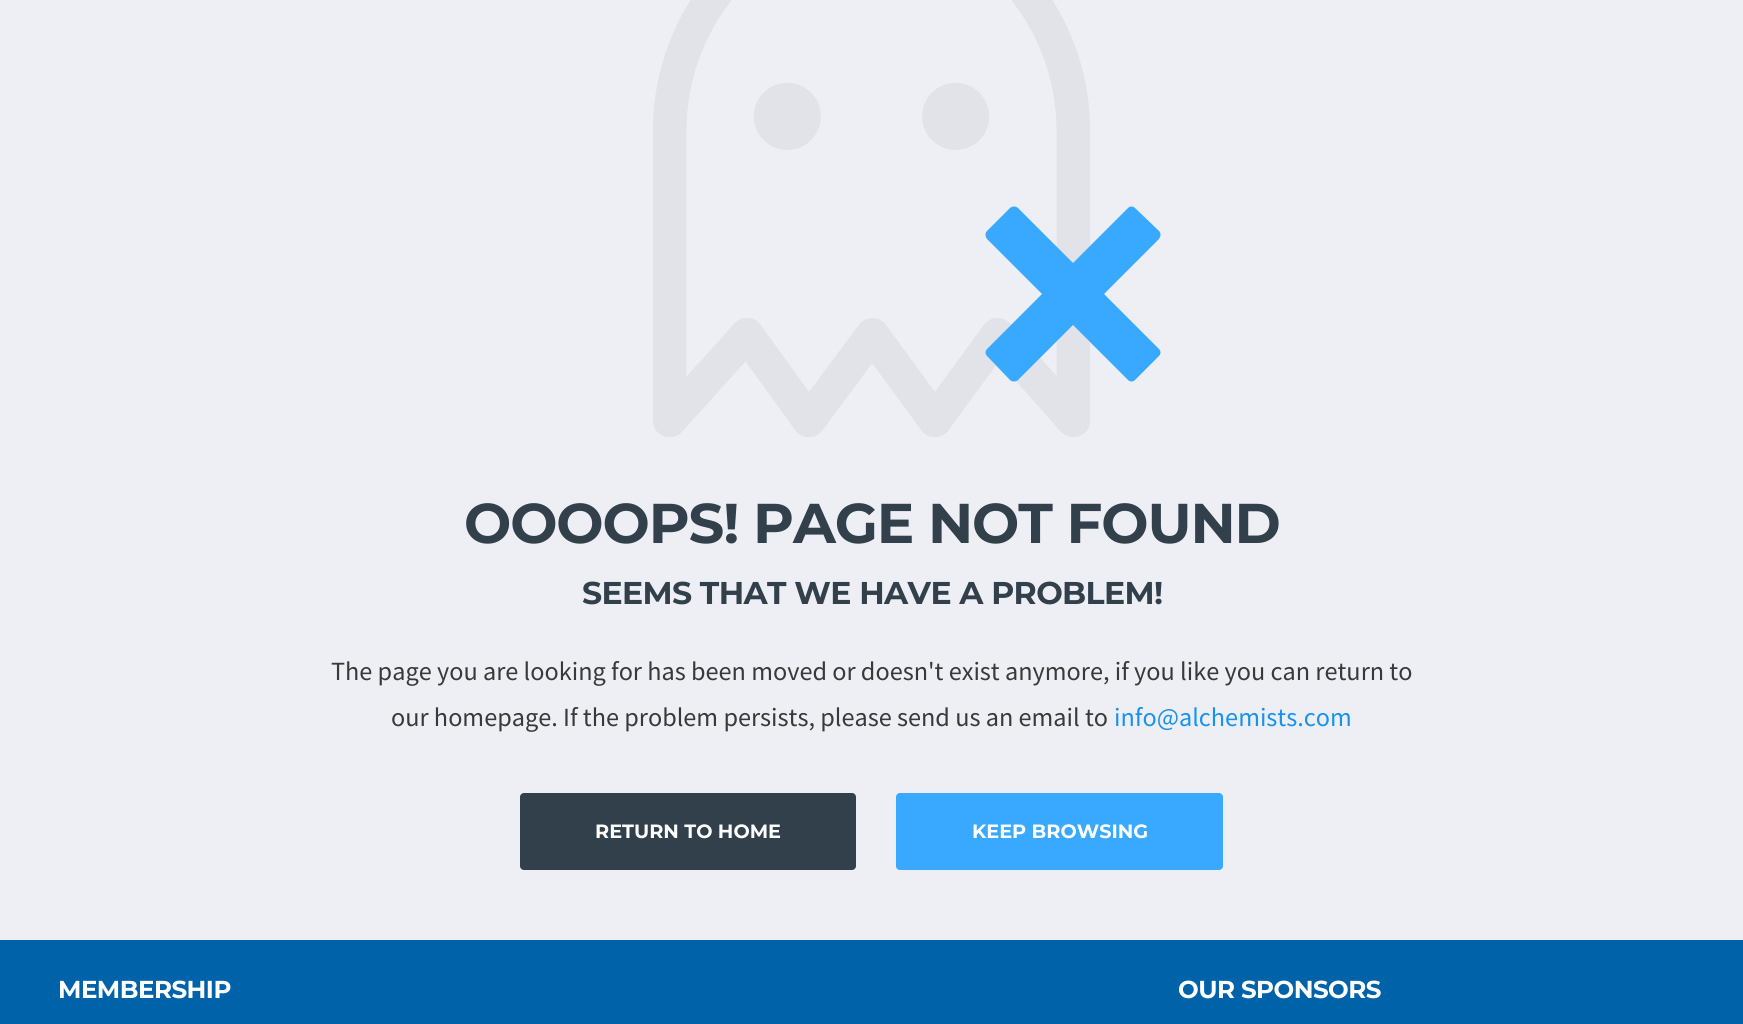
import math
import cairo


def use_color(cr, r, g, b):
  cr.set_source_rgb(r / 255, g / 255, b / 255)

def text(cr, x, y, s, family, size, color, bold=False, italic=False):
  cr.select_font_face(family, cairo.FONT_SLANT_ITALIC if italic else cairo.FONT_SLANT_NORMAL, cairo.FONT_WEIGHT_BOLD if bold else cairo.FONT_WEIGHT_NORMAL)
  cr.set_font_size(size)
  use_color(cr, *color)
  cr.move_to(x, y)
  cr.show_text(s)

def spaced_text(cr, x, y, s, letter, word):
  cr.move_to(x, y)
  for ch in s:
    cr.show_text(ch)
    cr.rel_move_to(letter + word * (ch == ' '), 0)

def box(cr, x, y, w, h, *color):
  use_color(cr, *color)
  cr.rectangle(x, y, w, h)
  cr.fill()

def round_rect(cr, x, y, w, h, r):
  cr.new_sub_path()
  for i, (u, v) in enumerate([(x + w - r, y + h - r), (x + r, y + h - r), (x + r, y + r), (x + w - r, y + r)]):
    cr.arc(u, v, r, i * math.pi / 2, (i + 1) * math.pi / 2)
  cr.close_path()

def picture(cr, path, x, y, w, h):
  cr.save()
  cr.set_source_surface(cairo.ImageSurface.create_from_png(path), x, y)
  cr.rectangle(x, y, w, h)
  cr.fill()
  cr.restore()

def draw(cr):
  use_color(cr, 237, 239, 244)
  cr.paint()
  picture(cr, "img_01.png", 653, 0, 437, 437)
  use_color(cr, 56, 169, 255)
  cr.new_path()
  cr.move_to(1018, 208)
  cr.line_to(1159, 349)
  cr.curve_to(1161, 351, 1161, 354, 1159, 356)
  cr.line_to(1135, 380)
  cr.curve_to(1133, 382, 1130, 382, 1128, 380)
  cr.line_to(987, 239)
  cr.curve_to(985, 236, 985, 233, 987, 231)
  cr.line_to(1010, 208)
  cr.curve_to(1012, 206, 1016, 206, 1018, 208)
  cr.close_path()
  cr.fill()
  cr.new_path()
  cr.move_to(987, 349)
  cr.line_to(1128, 208)
  cr.curve_to(1130, 206, 1133, 206, 1135, 208)
  cr.line_to(1159, 231)
  cr.curve_to(1161, 233, 1161, 236, 1159, 239)
  cr.line_to(1018, 380)
  cr.curve_to(1016, 382, 1012, 382, 1010, 380)
  cr.line_to(987, 356)
  cr.curve_to(985, 354, 985, 351, 987, 349)
  cr.close_path()
  cr.fill()
  use_color(cr, 49, 64, 75)
  round_rect(cr, 520, 793, 336, 77, 4)
  cr.fill()
  use_color(cr, 56, 169, 255)
  round_rect(cr, 896, 793, 327, 77, 4)
  cr.fill()
  box(cr, 0, 940, 1743, 84, 0, 98, 169)
  cr.select_font_face("Montserrat", cairo.FONT_SLANT_NORMAL, cairo.FONT_WEIGHT_BOLD)
  cr.set_font_size(56)
  use_color(cr, 49, 64, 75)
  spaced_text(cr, 464, 543, "OOOOPS! PAGE NOT FOUND", -1.1, 0)
  cr.set_font_size(31.5)
  spaced_text(cr, 582, 604, "SEEMS THAT WE HAVE A PROBLEM!", -0.6, 0)
  text(cr, 331, 680, "The page you are looking for has been moved or doesn't exist anymore, if you like you can return to", "Source Sans Pro", 26.25, (57, 57, 57))
  text(cr, 391, 726, "our homepage. If the problem persists, please send us an email to", "Source Sans Pro", 26.25, (57, 57, 57))
  text(cr, 1114, 726, "info@alchemists.com", "Source Sans Pro", 26.25, (24, 146, 237))
  text(cr, 595, 838, "RETURN TO HOME", "Montserrat", 19.25, (255, 255, 255), bold=True)
  text(cr, 972, 838, "KEEP BROWSING", "Montserrat", 19.25, (255, 255, 255), bold=True)
  cr.set_font_size(24.5)
  spaced_text(cr, 58, 998, "MEMBERSHIP", -0.5, 0)
  spaced_text(cr, 1178, 998, "OUR SPONSORS", -0.5, 0)


surface = cairo.ImageSurface(cairo.FORMAT_RGB24, 1743, 1024)
cr = cairo.Context(surface)
options = cairo.FontOptions()
options.set_hint_metrics(cairo.HINT_METRICS_OFF)
options.set_hint_style(cairo.HINT_STYLE_NONE)
cr.set_font_options(options)
cr.set_miter_limit(4)
draw(cr)
surface.write_to_png("out.png")
